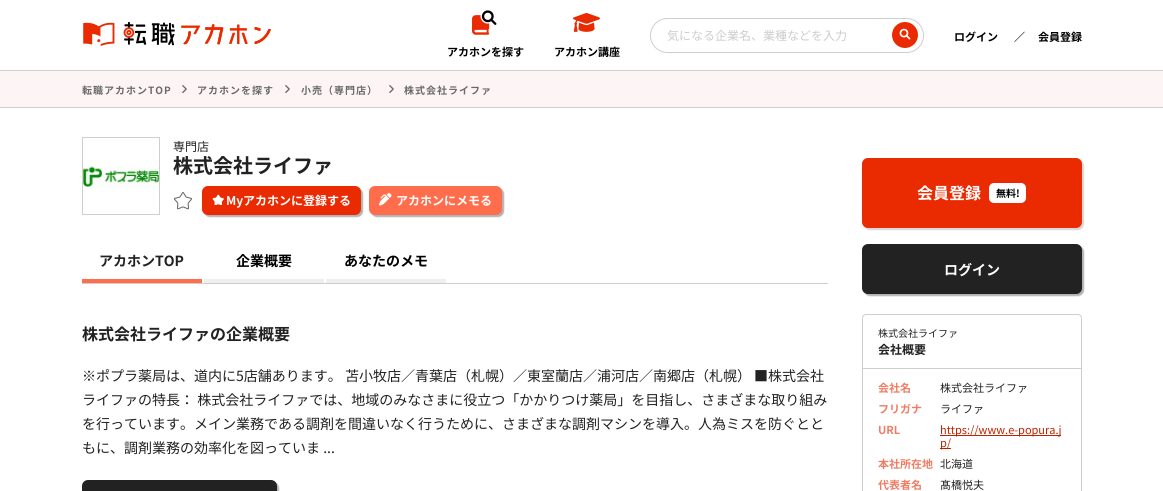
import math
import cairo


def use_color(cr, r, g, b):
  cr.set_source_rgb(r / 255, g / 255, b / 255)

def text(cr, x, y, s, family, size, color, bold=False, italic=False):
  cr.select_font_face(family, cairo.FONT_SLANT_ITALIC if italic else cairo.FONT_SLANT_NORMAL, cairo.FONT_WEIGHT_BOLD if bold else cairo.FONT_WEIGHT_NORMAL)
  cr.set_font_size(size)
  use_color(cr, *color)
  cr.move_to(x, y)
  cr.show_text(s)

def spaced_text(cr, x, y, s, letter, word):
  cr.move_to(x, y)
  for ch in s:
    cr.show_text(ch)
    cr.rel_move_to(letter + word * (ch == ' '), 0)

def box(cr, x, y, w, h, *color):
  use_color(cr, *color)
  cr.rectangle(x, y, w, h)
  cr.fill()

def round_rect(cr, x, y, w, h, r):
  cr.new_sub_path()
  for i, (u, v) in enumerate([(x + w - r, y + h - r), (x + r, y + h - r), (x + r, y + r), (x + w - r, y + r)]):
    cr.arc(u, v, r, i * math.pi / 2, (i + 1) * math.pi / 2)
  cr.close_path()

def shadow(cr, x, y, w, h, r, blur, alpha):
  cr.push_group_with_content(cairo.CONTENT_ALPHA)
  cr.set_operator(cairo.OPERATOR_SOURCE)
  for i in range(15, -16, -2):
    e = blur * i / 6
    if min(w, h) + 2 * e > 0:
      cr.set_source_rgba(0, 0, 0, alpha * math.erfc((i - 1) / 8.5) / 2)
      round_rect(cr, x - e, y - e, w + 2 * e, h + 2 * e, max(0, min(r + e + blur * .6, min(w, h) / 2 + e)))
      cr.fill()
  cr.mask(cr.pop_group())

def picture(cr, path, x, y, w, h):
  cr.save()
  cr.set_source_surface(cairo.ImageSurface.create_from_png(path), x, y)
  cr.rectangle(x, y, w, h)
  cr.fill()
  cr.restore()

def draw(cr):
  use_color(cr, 255, 255, 255)
  cr.paint()
  picture(cr, "img_01.png", 83, 22, 188, 24)
  round_rect(cr, 650.5, 18.5, 273, 34, 17)
  use_color(cr, 206, 206, 206)
  cr.set_line_width(1)
  cr.stroke()
  picture(cr, "img_02.png", 892, 22, 26, 26)
  picture(cr, "img_03.png", 472, 10, 25, 25)
  picture(cr, "img_04.png", 573, 13, 27, 19)
  box(cr, 0, 71, 1163, 36, 253, 245, 245)
  box(cr, 0, 70, 1163, 1, 206, 206, 206)
  box(cr, 0, 107, 1163, 1, 206, 206, 206)
  picture(cr, "img_05.png", 182, 85, 5, 8)
  picture(cr, "img_05.png", 285, 85, 5, 8)
  picture(cr, "img_05.png", 389, 85, 5, 8)
  picture(cr, "img_06.png", 83, 166, 76, 22)
  cr.rectangle(82.5, 137.5, 77, 77)
  cr.stroke()
  picture(cr, "img_07.png", 173, 192, 20, 18)
  use_color(cr, 0, 0, 0)
  shadow(cr, 204, 188, 159, 29, 6, 0.5, 0.3)
  use_color(cr, 234, 42, 0)
  round_rect(cr, 202, 186, 159, 29, 6)
  cr.fill()
  picture(cr, "img_08.png", 212, 194, 12, 11)
  use_color(cr, 0, 0, 0)
  shadow(cr, 371, 188, 133, 29, 6, 0.5, 0.3)
  use_color(cr, 255, 109, 77)
  round_rect(cr, 369, 186, 133, 29, 6)
  cr.fill()
  picture(cr, "img_09.png", 379, 193, 13, 13)
  box(cr, 82, 283, 746, 1, 206, 206, 206)
  box(cr, 82, 279, 120, 4, 255, 109, 77)
  box(cr, 204, 279, 120, 4, 239, 239, 239)
  box(cr, 326, 279, 120, 4, 239, 239, 239)
  use_color(cr, 0, 0, 0)
  shadow(cr, 84, 482, 195, 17, 6, 0.5, 0.3)
  use_color(cr, 34, 34, 34)
  round_rect(cr, 82, 480, 195, 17, 6)
  cr.fill()
  use_color(cr, 0, 0, 0)
  shadow(cr, 864, 160, 220, 70, 6, 0.5, 0.16)
  use_color(cr, 234, 42, 0)
  round_rect(cr, 862, 158, 220, 70, 6)
  cr.fill()
  use_color(cr, 255, 255, 255)
  round_rect(cr, 989, 183, 37, 20, 5)
  cr.fill()
  use_color(cr, 0, 0, 0)
  shadow(cr, 864, 246, 220, 50, 6, 0.5, 0.3)
  use_color(cr, 34, 34, 34)
  round_rect(cr, 862, 244, 220, 50, 6)
  cr.fill()
  round_rect(cr, 862.5, 314.5, 219, 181, 3.5)
  use_color(cr, 206, 206, 206)
  cr.stroke()
  box(cr, 863, 368, 218, 1, 206, 206, 206)
  box(cr, 940, 435, 121, 1, 191, 34, 0)
  box(cr, 940, 448, 11, 1, 191, 34, 0)
  text(cr, 667, 40, "気になる企業名、業種などを入力", "Noto Sans JP", 12, (204, 204, 204))
  text(cr, 954, 41, "ログイン", "Noto Sans JP", 11, (0, 0, 0), bold=True)
  text(cr, 1014, 41, "／", "Noto Sans JP", 11, (0, 0, 0), bold=True)
  text(cr, 1038, 41, "会員登録", "Noto Sans JP", 11, (0, 0, 0), bold=True)
  text(cr, 447, 56, "アカホンを探す", "Noto Sans JP", 11, (0, 0, 0), bold=True)
  text(cr, 554, 56, "アカホン講座", "Noto Sans JP", 11, (0, 0, 0), bold=True)
  cr.set_font_size(10)
  use_color(cr, 106, 106, 106)
  spaced_text(cr, 82, 94, "転職アカホンTOP", 1, 0)
  spaced_text(cr, 197, 94, "アカホンを探す", 1, 0)
  spaced_text(cr, 301, 94, "小売（専門店）", 1, 0)
  spaced_text(cr, 404, 94, "株式会社ライファ", 1, 0)
  text(cr, 173, 151, "専門店", "Noto Sans JP", 12, (34, 34, 34))
  text(cr, 173, 173, "株式会社ライファ", "Noto Sans JP", 20, (34, 34, 34), bold=True)
  text(cr, 226, 205, "Myアカホンに登録する", "Noto Sans JP", 12, (255, 255, 255), bold=True)
  text(cr, 396, 205, "アカホンにメモる", "Noto Sans JP", 12, (255, 255, 255), bold=True)
  text(cr, 99, 266, "アカホンTOP", "Noto Sans JP", 14, (34, 34, 34), bold=True)
  text(cr, 236, 266, "企業概要", "Noto Sans JP", 14, (0, 0, 0), bold=True)
  text(cr, 344, 266, "あなたのメモ", "Noto Sans JP", 14, (0, 0, 0), bold=True)
  text(cr, 82, 340, "株式会社ライファの企業概要", "Noto Sans JP", 16, (34, 34, 34), bold=True)
  text(cr, 82, 381, "※ポプラ薬局は、道内に5店舗あります。 苫小牧店／青葉店（札幌）／東室蘭店／浦河店／南郷店（札幌） ■株式会社", "Noto Sans JP", 14, (34, 34, 34))
  text(cr, 82, 405, "ライファの特長： 株式会社ライファでは、地域のみなさまに役立つ「かかりつけ薬局」を目指し、さまざまな取り組み", "Noto Sans JP", 14, (34, 34, 34))
  text(cr, 82, 429, "を行っています。メイン業務である調剤を間違いなく行うために、さまざまな調剤マシンを導入。人為ミスを防ぐとと", "Noto Sans JP", 14, (34, 34, 34))
  text(cr, 82, 453, "もに、調剤業務の効率化を図っていま ...", "Noto Sans JP", 14, (34, 34, 34))
  text(cr, 917, 199, "会員登録", "Noto Sans JP", 16, (255, 255, 255), bold=True)
  text(cr, 996, 197, "無料!", "Noto Sans JP", 10, (0, 0, 0), bold=True)
  text(cr, 944, 275, "ログイン", "Noto Sans JP", 14, (255, 255, 255), bold=True)
  text(cr, 878, 337, "株式会社ライファ", "Noto Sans JP", 10, (34, 34, 34))
  text(cr, 878, 354, "会社概要", "Noto Sans JP", 12, (34, 34, 34), bold=True)
  text(cr, 878, 392, "会社名", "Noto Sans JP", 11, (240, 124, 99), bold=True)
  text(cr, 940, 392, "株式会社ライファ", "Noto Sans JP", 11, (34, 34, 34))
  text(cr, 878, 413, "フリガナ", "Noto Sans JP", 11, (240, 124, 99), bold=True)
  text(cr, 940, 413, "ライファ", "Noto Sans JP", 11, (34, 34, 34))
  text(cr, 878, 434, "URL", "Noto Sans JP", 11, (240, 124, 99), bold=True)
  text(cr, 940, 434, "https://www.e-popura.j", "Noto Sans JP", 11, (191, 34, 0))
  text(cr, 940, 447, "p/", "Noto Sans JP", 11, (191, 34, 0))
  text(cr, 878, 468, "本社所在地", "Noto Sans JP", 11, (240, 124, 99), bold=True)
  text(cr, 940, 468, "北海道", "Noto Sans JP", 11, (34, 34, 34))
  text(cr, 878, 489, "代表者名", "Noto Sans JP", 11, (240, 124, 99), bold=True)
  text(cr, 940, 489, "髙橋悦夫", "Noto Sans JP", 11, (34, 34, 34))


surface = cairo.ImageSurface(cairo.FORMAT_RGB24, 1163, 491)
cr = cairo.Context(surface)
options = cairo.FontOptions()
options.set_hint_metrics(cairo.HINT_METRICS_OFF)
options.set_hint_style(cairo.HINT_STYLE_NONE)
cr.set_font_options(options)
cr.set_miter_limit(4)
draw(cr)
surface.write_to_png("out.png")
